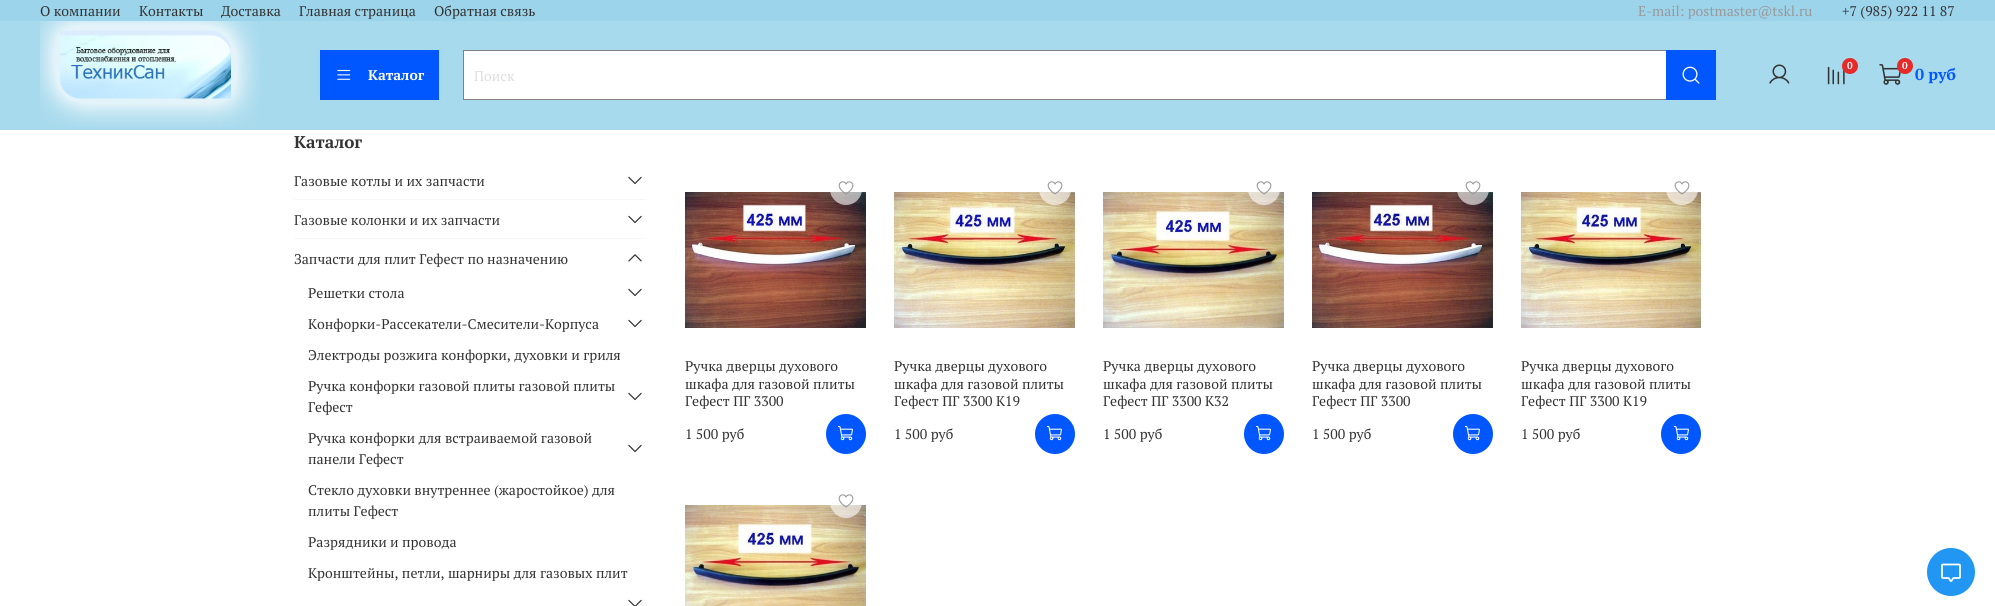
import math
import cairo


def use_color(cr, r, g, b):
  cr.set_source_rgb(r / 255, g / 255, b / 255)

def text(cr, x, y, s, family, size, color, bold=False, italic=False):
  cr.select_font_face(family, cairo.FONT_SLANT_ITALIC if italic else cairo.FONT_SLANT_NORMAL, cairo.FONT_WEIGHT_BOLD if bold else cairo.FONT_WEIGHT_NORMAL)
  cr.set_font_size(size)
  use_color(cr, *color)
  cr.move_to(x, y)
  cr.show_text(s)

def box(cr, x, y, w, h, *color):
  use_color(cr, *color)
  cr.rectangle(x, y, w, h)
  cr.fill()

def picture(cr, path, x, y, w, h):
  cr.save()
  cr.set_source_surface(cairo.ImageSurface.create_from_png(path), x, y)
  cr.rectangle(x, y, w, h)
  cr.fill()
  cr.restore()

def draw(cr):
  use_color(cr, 255, 255, 255)
  cr.paint()
  box(cr, 0, 0, 1995, 21, 156, 212, 235)
  box(cr, 0, 21, 1995, 109, 168, 218, 237)
  picture(cr, "img_01.png", 40, 21, 220, 106)
  box(cr, 320, 50, 119, 50, 0, 87, 255)
  picture(cr, "img_02.png", 337, 69, 14, 11)
  box(cr, 464, 51, 1202, 48, 255, 255, 255)
  box(cr, 463, 50, 1203, 1, 128, 128, 128)
  box(cr, 463, 99, 1203, 1, 128, 128, 128)
  box(cr, 463, 50, 1, 50, 128, 128, 128)
  box(cr, 1666, 50, 50, 50, 0, 87, 255)
  picture(cr, "img_03.png", 1682, 66, 18, 18)
  picture(cr, "img_04.png", 1769, 64, 21, 20)
  picture(cr, "img_05.png", 1827, 66, 18, 19)
  use_color(cr, 230, 41, 41)
  cr.arc(1850, 66, 8, 0, 2 * math.pi)
  cr.fill()
  picture(cr, "img_06.png", 1879, 64, 22, 21)
  cr.arc(1905, 66, 8, 0, 2 * math.pi)
  cr.fill()
  box(cr, 294, 199, 352, 1, 247, 247, 247)
  picture(cr, "img_07.png", 628, 176, 14, 9)
  box(cr, 294, 238, 352, 1, 247, 247, 247)
  picture(cr, "img_07.png", 628, 215, 14, 9)
  picture(cr, "img_08.png", 628, 254, 14, 8)
  picture(cr, "img_07.png", 628, 288, 14, 9)
  picture(cr, "img_07.png", 628, 319, 14, 9)
  picture(cr, "img_07.png", 628, 392, 14, 9)
  picture(cr, "img_07.png", 628, 444, 14, 9)
  picture(cr, "img_09.png", 628, 599, 14, 7)
  picture(cr, "img_11.png", 685, 192, 181, 136)
  cr.set_source_rgba(1, 1, 1, 0.6)
  cr.arc(846, 189, 16, 0, 2 * math.pi)
  cr.fill()
  picture(cr, "img_10.png", 838, 181, 16, 14)
  use_color(cr, 0, 87, 255)
  cr.arc(846, 434, 20, 0, 2 * math.pi)
  cr.fill()
  picture(cr, "img_12.png", 837, 426, 16, 15)
  picture(cr, "img_14.png", 894, 192, 181, 136)
  cr.set_source_rgba(1, 1, 1, 0.6)
  cr.arc(1055, 189, 16, 0, 2 * math.pi)
  cr.fill()
  picture(cr, "img_13.png", 1047, 181, 16, 14)
  use_color(cr, 0, 87, 255)
  cr.arc(1055, 434, 20, 0, 2 * math.pi)
  cr.fill()
  picture(cr, "img_12.png", 1046, 426, 16, 15)
  picture(cr, "img_16.png", 1103, 192, 181, 136)
  cr.set_source_rgba(1, 1, 1, 0.6)
  cr.arc(1264, 189, 16, 0, 2 * math.pi)
  cr.fill()
  picture(cr, "img_15.png", 1256, 181, 16, 14)
  use_color(cr, 0, 87, 255)
  cr.arc(1264, 434, 20, 0, 2 * math.pi)
  cr.fill()
  picture(cr, "img_12.png", 1255, 426, 16, 15)
  picture(cr, "img_18.png", 1312, 192, 181, 136)
  cr.set_source_rgba(1, 1, 1, 0.6)
  cr.arc(1473, 189, 16, 0, 2 * math.pi)
  cr.fill()
  picture(cr, "img_17.png", 1465, 181, 16, 14)
  use_color(cr, 0, 87, 255)
  cr.arc(1473, 434, 20, 0, 2 * math.pi)
  cr.fill()
  picture(cr, "img_12.png", 1464, 426, 16, 15)
  picture(cr, "img_20.png", 1521, 192, 180, 136)
  cr.set_source_rgba(1, 1, 1, 0.6)
  cr.arc(1682, 189, 16, 0, 2 * math.pi)
  cr.fill()
  picture(cr, "img_19.png", 1674, 181, 16, 14)
  use_color(cr, 0, 87, 255)
  cr.arc(1681, 434, 20, 0, 2 * math.pi)
  cr.fill()
  picture(cr, "img_12.png", 1673, 426, 16, 15)
  picture(cr, "img_22.png", 685, 505, 181, 101)
  cr.set_source_rgba(1, 1, 1, 0.6)
  cr.arc(846, 502, 16, 0, 2 * math.pi)
  cr.fill()
  picture(cr, "img_21.png", 838, 494, 16, 14)
  use_color(cr, 33, 150, 243)
  cr.arc(1951, 572, 24, 0, 2 * math.pi)
  cr.fill()
  picture(cr, "img_23.png", 1941, 563, 20, 19)
  text(cr, 40, 16, "О компании", "PT Serif", 14, (51, 51, 51))
  text(cr, 139, 16, "Контакты", "PT Serif", 14, (51, 51, 51))
  text(cr, 221, 16, "Доставка", "PT Serif", 14, (51, 51, 51))
  text(cr, 299, 16, "Главная страница", "PT Serif", 14, (51, 51, 51))
  text(cr, 434, 16, "Обратная связь", "PT Serif", 14, (51, 51, 51))
  text(cr, 1638, 16, "E-mail: postmaster@tskl.ru", "PT Serif", 14, (153, 153, 153))
  text(cr, 1842, 16, "+7 (985) 922 11 87", "PT Serif", 14, (51, 51, 51))
  text(cr, 368, 80, "Каталог", "PT Serif", 14, (255, 255, 255), bold=True)
  text(cr, 474, 81, "Поиск", "PT Serif", 14, (221, 221, 221))
  text(cr, 1847, 69, "0", "PT Serif", 10, (255, 255, 255), bold=True)
  text(cr, 1902, 69, "0", "PT Serif", 10, (255, 255, 255), bold=True)
  text(cr, 1915, 80, "0 руб", "PT Serif", 16, (0, 87, 255), bold=True)
  text(cr, 294, 148, "Каталог", "PT Serif", 17, (51, 51, 51), bold=True)
  text(cr, 294, 186, "Газовые котлы и их запчасти", "PT Serif", 14, (51, 51, 51))
  text(cr, 294, 225, "Газовые колонки и их запчасти", "PT Serif", 14, (51, 51, 51))
  text(cr, 294, 264, "Запчасти для плит Гефест по назначению", "PT Serif", 14, (51, 51, 51))
  text(cr, 308, 298, "Решетки стола", "PT Serif", 14, (51, 51, 51))
  text(cr, 308, 329, "Конфорки-Рассекатели-Смесители-Корпуса", "PT Serif", 14, (51, 51, 51))
  text(cr, 308, 360, "Электроды розжига конфорки, духовки и гриля", "PT Serif", 14, (51, 51, 51))
  text(cr, 308, 391, "Ручка конфорки газовой плиты газовой плиты", "PT Serif", 14, (51, 51, 51))
  text(cr, 308, 412, "Гефест", "PT Serif", 14, (51, 51, 51))
  text(cr, 308, 443, "Ручка конфорки для встраиваемой газовой", "PT Serif", 14, (51, 51, 51))
  text(cr, 308, 464, "панели Гефест", "PT Serif", 14, (51, 51, 51))
  text(cr, 308, 495, "Стекло духовки внутреннее (жаростойкое) для", "PT Serif", 14, (51, 51, 51))
  text(cr, 308, 516, "плиты Гефест", "PT Serif", 14, (51, 51, 51))
  text(cr, 308, 547, "Разрядники и провода", "PT Serif", 14, (51, 51, 51))
  text(cr, 308, 578, "Кронштейны, петли, шарниры для газовых плит", "PT Serif", 14, (51, 51, 51))
  text(cr, 685, 371, "Ручка дверцы духового", "PT Serif", 14, (51, 51, 51))
  text(cr, 685, 389, "шкафа для газовой плиты", "PT Serif", 14, (51, 51, 51))
  text(cr, 685, 406, "Гефест ПГ 3300", "PT Serif", 14, (51, 51, 51))
  text(cr, 685, 439, "1 500 руб", "PT Serif", 14, (51, 51, 51))
  text(cr, 894, 371, "Ручка дверцы духового", "PT Serif", 14, (51, 51, 51))
  text(cr, 894, 389, "шкафа для газовой плиты", "PT Serif", 14, (51, 51, 51))
  text(cr, 894, 406, "Гефест ПГ 3300 К19", "PT Serif", 14, (51, 51, 51))
  text(cr, 894, 439, "1 500 руб", "PT Serif", 14, (51, 51, 51))
  text(cr, 1103, 371, "Ручка дверцы духового", "PT Serif", 14, (51, 51, 51))
  text(cr, 1103, 389, "шкафа для газовой плиты", "PT Serif", 14, (51, 51, 51))
  text(cr, 1103, 406, "Гефест ПГ 3300 К32", "PT Serif", 14, (51, 51, 51))
  text(cr, 1103, 439, "1 500 руб", "PT Serif", 14, (51, 51, 51))
  text(cr, 1312, 371, "Ручка дверцы духового", "PT Serif", 14, (51, 51, 51))
  text(cr, 1312, 389, "шкафа для газовой плиты", "PT Serif", 14, (51, 51, 51))
  text(cr, 1312, 406, "Гефест ПГ 3300", "PT Serif", 14, (51, 51, 51))
  text(cr, 1312, 439, "1 500 руб", "PT Serif", 14, (51, 51, 51))
  text(cr, 1521, 371, "Ручка дверцы духового", "PT Serif", 14, (51, 51, 51))
  text(cr, 1521, 389, "шкафа для газовой плиты", "PT Serif", 14, (51, 51, 51))
  text(cr, 1521, 406, "Гефест ПГ 3300 К19", "PT Serif", 14, (51, 51, 51))
  text(cr, 1521, 439, "1 500 руб", "PT Serif", 14, (51, 51, 51))


surface = cairo.ImageSurface(cairo.FORMAT_RGB24, 1995, 606)
cr = cairo.Context(surface)
options = cairo.FontOptions()
options.set_hint_metrics(cairo.HINT_METRICS_OFF)
options.set_hint_style(cairo.HINT_STYLE_NONE)
cr.set_font_options(options)
cr.set_miter_limit(4)
draw(cr)
surface.write_to_png("out.png")
